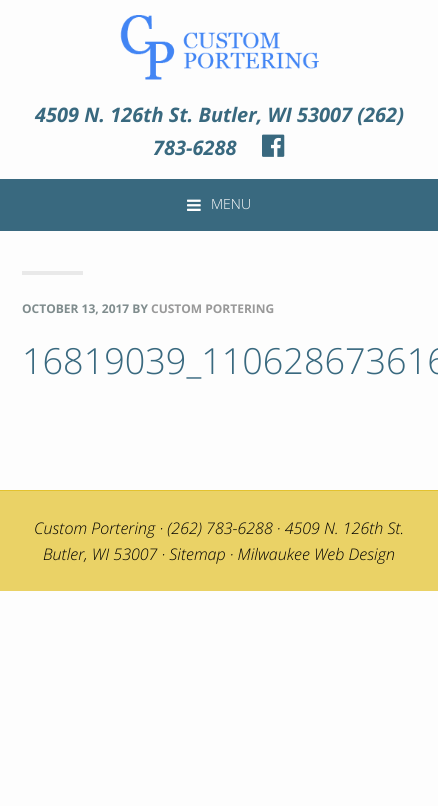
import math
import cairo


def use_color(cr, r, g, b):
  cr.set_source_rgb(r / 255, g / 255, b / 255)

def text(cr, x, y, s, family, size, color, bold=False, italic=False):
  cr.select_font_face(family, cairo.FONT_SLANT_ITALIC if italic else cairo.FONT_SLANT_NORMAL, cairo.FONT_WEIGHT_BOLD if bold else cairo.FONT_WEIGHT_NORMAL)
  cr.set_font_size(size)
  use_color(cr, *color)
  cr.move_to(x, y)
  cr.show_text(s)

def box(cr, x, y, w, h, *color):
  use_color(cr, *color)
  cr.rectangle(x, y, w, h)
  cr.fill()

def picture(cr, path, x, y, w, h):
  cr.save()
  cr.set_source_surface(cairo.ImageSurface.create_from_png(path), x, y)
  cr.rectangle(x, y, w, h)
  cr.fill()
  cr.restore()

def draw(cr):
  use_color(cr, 253, 253, 253)
  cr.paint()
  picture(cr, "img_01.png", 120, 15, 199, 65)
  picture(cr, "img_02.png", 262, 134, 23, 23)
  box(cr, 0, 179, 438, 52, 57, 105, 127)
  picture(cr, "img_03.png", 187, 199, 14, 12)
  box(cr, 22, 271, 61, 4, 233, 233, 233)
  box(cr, 0, 491, 438, 100, 234, 210, 102)
  box(cr, 0, 490, 438, 1, 227, 194, 47)
  text(cr, 35, 122, "4509 N. 126th St. Butler, WI 53007 (262)", "Open Sans", 20, (57, 105, 127), bold=True, italic=True)
  text(cr, 153, 155, "783-6288", "Open Sans", 20, (57, 105, 127), bold=True, italic=True)
  text(cr, 211, 209, "MENU", "Open Sans Light", 14, (255, 255, 255))
  text(cr, 22, 313, "OCTOBER 13, 2017 BY", "Open Sans", 12, (127, 140, 141), bold=True)
  text(cr, 151, 313, "CUSTOM PORTERING", "Open Sans", 12, (153, 153, 153), bold=True)
  text(cr, 22, 374, "16819039_110628673616", "Open Sans Light", 36, (57, 105, 127))
  text(cr, 34, 534, "Custom Portering · (262) 783-6288 · 4509 N. 126th St.", "Open Sans Light", 16, (0, 0, 0), italic=True)
  text(cr, 43, 560, "Butler, WI 53007 · Sitemap · Milwaukee Web Design", "Open Sans Light", 16, (0, 0, 0), italic=True)


surface = cairo.ImageSurface(cairo.FORMAT_RGB24, 438, 806)
cr = cairo.Context(surface)
options = cairo.FontOptions()
options.set_hint_metrics(cairo.HINT_METRICS_OFF)
options.set_hint_style(cairo.HINT_STYLE_NONE)
cr.set_font_options(options)
cr.set_miter_limit(4)
draw(cr)
surface.write_to_png("out.png")
